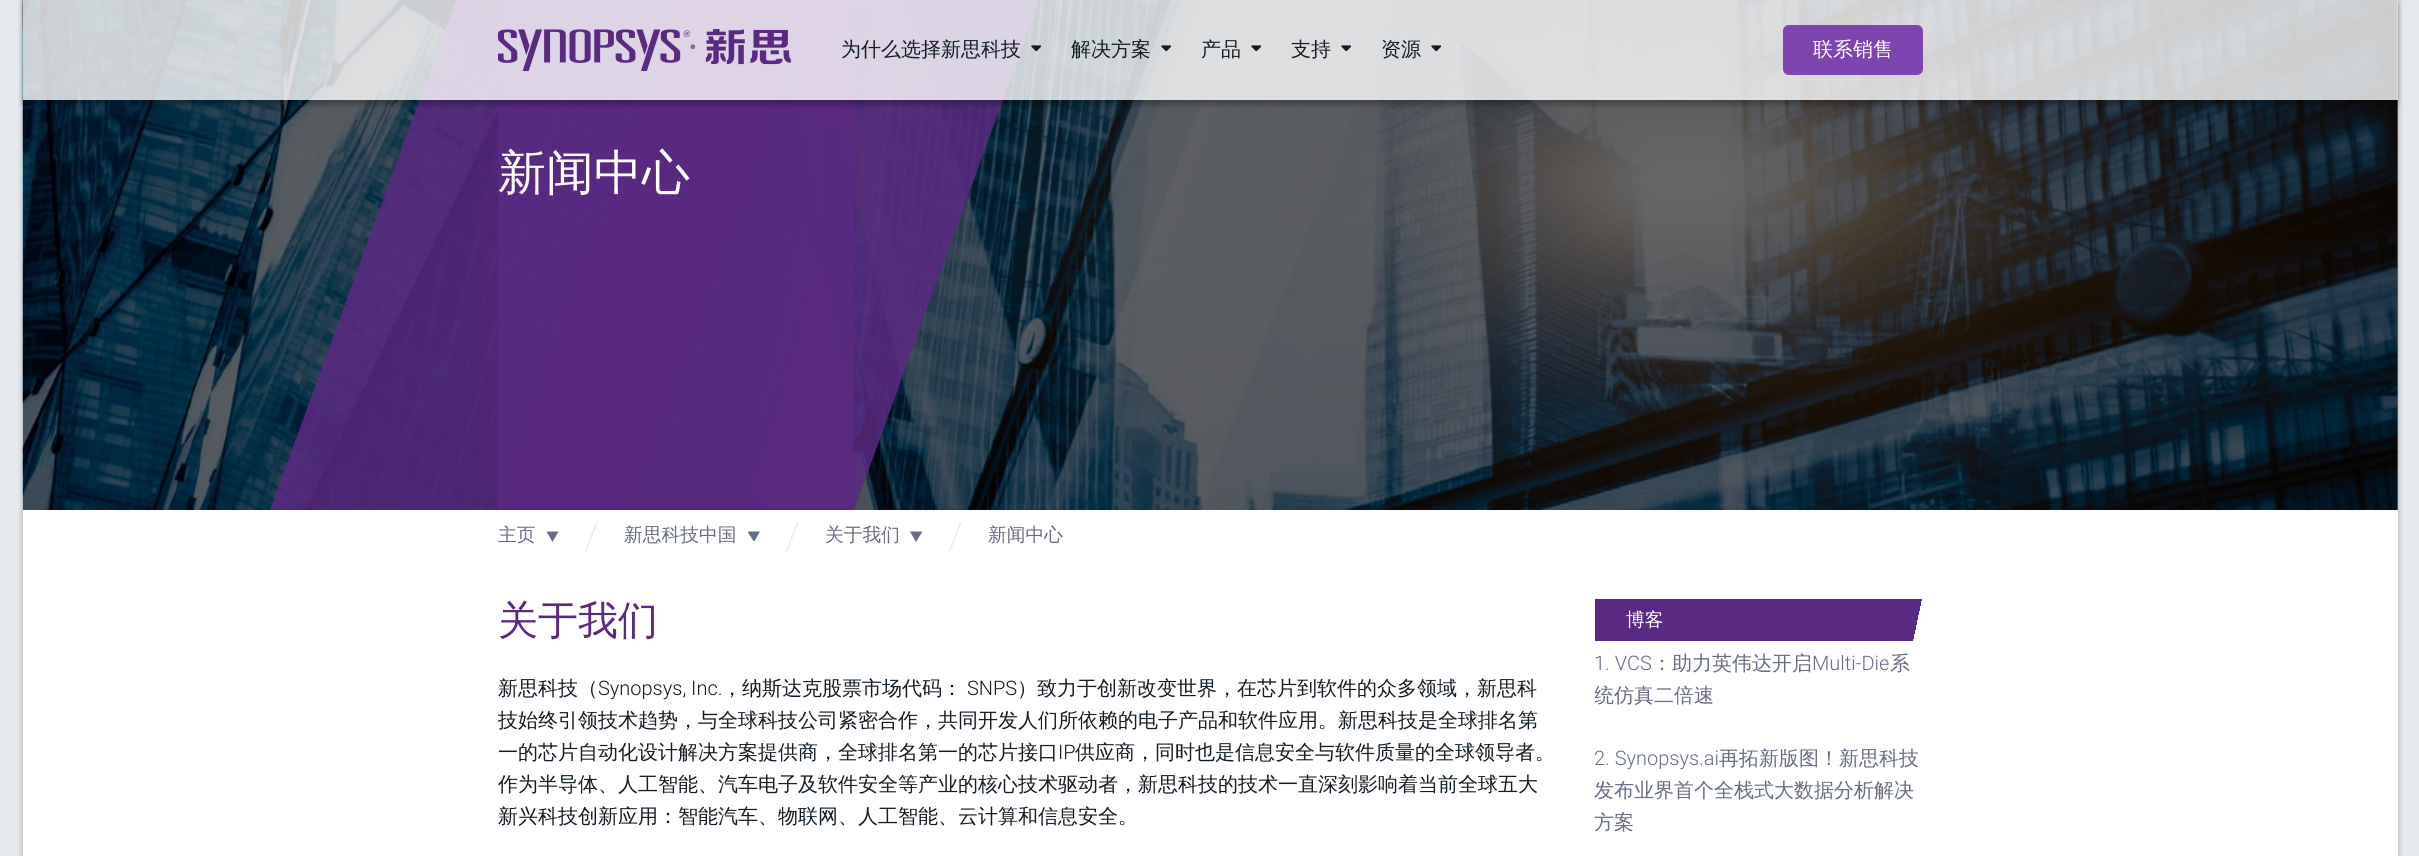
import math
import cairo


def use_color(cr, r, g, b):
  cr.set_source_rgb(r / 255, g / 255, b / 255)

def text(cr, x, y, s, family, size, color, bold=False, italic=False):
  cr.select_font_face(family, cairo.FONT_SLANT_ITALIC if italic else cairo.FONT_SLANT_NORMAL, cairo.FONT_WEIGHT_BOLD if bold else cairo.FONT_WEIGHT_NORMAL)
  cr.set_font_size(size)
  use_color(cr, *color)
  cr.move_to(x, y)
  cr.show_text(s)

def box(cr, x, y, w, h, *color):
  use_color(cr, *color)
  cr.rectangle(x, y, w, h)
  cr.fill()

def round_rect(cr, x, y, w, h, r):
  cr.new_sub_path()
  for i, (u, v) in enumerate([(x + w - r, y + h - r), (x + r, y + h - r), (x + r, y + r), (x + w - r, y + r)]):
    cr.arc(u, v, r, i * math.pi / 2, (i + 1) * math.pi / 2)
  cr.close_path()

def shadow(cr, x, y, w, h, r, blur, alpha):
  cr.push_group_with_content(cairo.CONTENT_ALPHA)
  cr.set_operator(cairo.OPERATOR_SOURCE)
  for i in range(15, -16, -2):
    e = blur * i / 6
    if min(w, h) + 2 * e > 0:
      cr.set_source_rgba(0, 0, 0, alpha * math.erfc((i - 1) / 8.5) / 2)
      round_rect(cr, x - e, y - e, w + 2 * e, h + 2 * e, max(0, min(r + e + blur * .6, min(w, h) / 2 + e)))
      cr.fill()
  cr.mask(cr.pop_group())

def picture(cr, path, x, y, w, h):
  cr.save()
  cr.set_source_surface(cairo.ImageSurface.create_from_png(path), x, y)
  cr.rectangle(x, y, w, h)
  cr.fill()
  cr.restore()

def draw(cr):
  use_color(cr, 230, 234, 237)
  cr.paint()
  use_color(cr, 0, 0, 0)
  shadow(cr, 23, -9, 2375, 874, 0, 3, 0.3)
  box(cr, 23, 0, 2375, 856, 255, 255, 255)
  picture(cr, "img_07.png", 22, 0, 2376, 510)
  cr.set_source_rgba(0, 0, 0, 0.6)
  cr.rectangle(23, 0, 2375, 510)
  cr.fill()
  cr.set_source_rgba(0.353, 0.165, 0.51, 0.85)
  cr.rectangle(498, 0, 356, 510)
  cr.fill()
  cr.new_path()
  cr.move_to(498, -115)
  cr.line_to(854, -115)
  cr.line_to(626, 510)
  cr.line_to(270, 510)
  cr.close_path()
  cr.fill()
  cr.new_path()
  cr.move_to(725, -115)
  cr.line_to(1081, -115)
  cr.line_to(854, 510)
  cr.line_to(498, 510)
  cr.close_path()
  cr.fill()
  cr.save()
  cr.set_fill_rule(cairo.FILL_RULE_EVEN_ODD)
  cr.new_path()
  cr.move_to(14, 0)
  cr.line_to(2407, 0)
  cr.line_to(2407, 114)
  cr.line_to(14, 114)
  cr.close_path()
  cr.move_to(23, 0)
  cr.line_to(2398, 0)
  cr.line_to(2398, 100)
  cr.line_to(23, 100)
  cr.close_path()
  cr.clip()
  use_color(cr, 0, 0, 0)
  shadow(cr, 23, 5, 2375, 100, 0, 2.5, 0.25)
  cr.restore()
  cr.set_source_rgba(1, 1, 1, 0.8)
  cr.rectangle(23, 0, 2375, 100)
  cr.fill()
  picture(cr, "img_01.png", 498, 29, 293, 42)
  picture(cr, "img_02.png", 1031, 45, 10, 7)
  picture(cr, "img_03.png", 1161, 45, 10, 7)
  picture(cr, "img_04.png", 1251, 45, 10, 7)
  picture(cr, "img_05.png", 1341, 45, 10, 7)
  picture(cr, "img_06.png", 1431, 45, 10, 7)
  use_color(cr, 126, 69, 175)
  round_rect(cr, 1783, 25, 140, 50, 6)
  cr.fill()
  use_color(cr, 100, 110, 129)
  cr.set_fill_rule(cairo.FILL_RULE_EVEN_ODD)
  cr.new_path()
  cr.move_to(552.5, 542)
  cr.line_to(546.5, 531.5)
  cr.line_to(558.5, 531.5)
  cr.close_path()
  cr.fill()
  cr.save()
  cr.set_fill_rule(cairo.FILL_RULE_WINDING)
  cr.rectangle(748, 531, 12, 10)
  cr.clip()
  cr.set_fill_rule(cairo.FILL_RULE_EVEN_ODD)
  cr.new_path()
  cr.move_to(754, 542)
  cr.line_to(747.5, 531.5)
  cr.line_to(760, 531.5)
  cr.close_path()
  cr.fill()
  cr.restore()
  cr.new_path()
  cr.move_to(916, 542)
  cr.line_to(910, 531.5)
  cr.line_to(922.5, 531.5)
  cr.close_path()
  cr.fill()
  box(cr, 1595, 599, 318, 42, 90, 42, 130)
  gradient = cairo.LinearGradient(1908, 618, 1927, 622)
  gradient.add_color_stop_rgba(0.5, 0.353, 0.165, 0.51, 1)
  gradient.add_color_stop_rgba(0.5, 1, 1, 1, 1)
  cr.set_source(gradient)
  cr.rectangle(1913, 599, 9, 40)
  cr.fill()
  text(cr, 841, 56, "为什么选择新思科技", "WenQuanYi Zen Hei Medium", 20, (17, 28, 36))
  text(cr, 1071, 56, "解决方案", "WenQuanYi Zen Hei Medium", 20, (17, 28, 36))
  text(cr, 1201, 56, "产品", "WenQuanYi Zen Hei Medium", 20, (17, 28, 36))
  text(cr, 1291, 56, "支持", "WenQuanYi Zen Hei Medium", 20, (17, 28, 36))
  text(cr, 1381, 56, "资源", "WenQuanYi Zen Hei Medium", 20, (17, 28, 36))
  text(cr, 1813, 56, "联系销售", "WenQuanYi Zen Hei Medium", 20, (255, 255, 255))
  text(cr, 498, 189, "新闻中心", "WenQuanYi Zen Hei Medium", 48, (255, 255, 255))
  text(cr, 498, 541, "主页", "WenQuanYi Zen Hei Medium", 18.75, (100, 110, 129))
  text(cr, 584, 549, "/", "Roboto Light", 38, (238, 238, 238))
  text(cr, 624, 541, "新思科技中国", "WenQuanYi Zen Hei Medium", 18.75, (100, 110, 129))
  text(cr, 785, 549, "/", "Roboto Light", 38, (238, 238, 238))
  text(cr, 825, 541, "关于我们", "WenQuanYi Zen Hei Medium", 18.75, (100, 110, 129))
  text(cr, 948, 549, "/", "Roboto Light", 38, (238, 238, 238))
  text(cr, 988, 541, "新闻中心", "WenQuanYi Zen Hei Medium", 18.75, (100, 110, 129))
  text(cr, 498, 634, "关于我们", "WenQuanYi Zen Hei Medium", 40, (90, 42, 130))
  text(cr, 498, 695, "新思科技（", "WenQuanYi Zen Hei Medium", 20, (17, 28, 36))
  text(cr, 598, 695, "Synopsys, Inc.", "Roboto Light", 20, (17, 28, 36))
  text(cr, 722, 695, "，纳斯达克股票市场代码：", "WenQuanYi Zen Hei Medium", 20, (17, 28, 36))
  text(cr, 967, 695, "SNPS", "Roboto Light", 20, (17, 28, 36))
  text(cr, 1017, 695, "）致力于创新改变世界，在芯片到软件的众多领域，新思科", "WenQuanYi Zen Hei Medium", 20, (17, 28, 36))
  text(cr, 498, 727, "技始终引领技术趋势，与全球科技公司紧密合作，共同开发人们所依赖的电子产品和软件应用。新思科技是全球排名第", "WenQuanYi Zen Hei Medium", 20, (17, 28, 36))
  text(cr, 498, 759, "一的芯片自动化设计解决方案提供商，全球排名第一的芯片接口", "WenQuanYi Zen Hei Medium", 20, (17, 28, 36))
  text(cr, 1058, 759, "IP", "Roboto Light", 20, (17, 28, 36))
  text(cr, 1075, 759, "供应商，同时也是信息安全与软件质量的全球领导者。", "WenQuanYi Zen Hei Medium", 20, (17, 28, 36))
  text(cr, 498, 791, "作为半导体、人工智能、汽车电子及软件安全等产业的核心技术驱动者，新思科技的技术一直深刻影响着当前全球五大", "WenQuanYi Zen Hei Medium", 20, (17, 28, 36))
  text(cr, 498, 823, "新兴科技创新应用：智能汽车、物联网、人工智能、云计算和信息安全。", "WenQuanYi Zen Hei Medium", 20, (17, 28, 36))
  text(cr, 1626, 626, "博客", "WenQuanYi Zen Hei Medium", 18.75, (255, 255, 255))
  text(cr, 1594, 670, "1. VCS", "Roboto Light", 20, (100, 110, 129))
  text(cr, 1652, 670, "：助力英伟达开启", "WenQuanYi Zen Hei Medium", 20, (100, 110, 129))
  text(cr, 1812, 670, "Multi-Die", "Roboto Light", 20, (100, 110, 129))
  text(cr, 1890, 670, "系", "WenQuanYi Zen Hei Medium", 20, (100, 110, 129))
  cr.save()
  cr.set_fill_rule(cairo.FILL_RULE_WINDING)
  cr.rectangle(1595, 599, 328, 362)
  cr.clip()
  text(cr, 1594, 702, "统仿真二倍速", "WenQuanYi Zen Hei Medium", 20, (100, 110, 129))
  cr.restore()
  text(cr, 1594, 765, "2. Synopsys.ai", "Roboto Light", 20, (100, 110, 129))
  text(cr, 1719, 765, "再拓新版图！新思科技", "WenQuanYi Zen Hei Medium", 20, (100, 110, 129))
  text(cr, 1594, 797, "发布业界首个全栈式大数据分析解决", "WenQuanYi Zen Hei Medium", 20, (100, 110, 129))
  text(cr, 1594, 829, "方案", "WenQuanYi Zen Hei Medium", 20, (100, 110, 129))


surface = cairo.ImageSurface(cairo.FORMAT_RGB24, 2419, 856)
cr = cairo.Context(surface)
options = cairo.FontOptions()
options.set_hint_metrics(cairo.HINT_METRICS_OFF)
options.set_hint_style(cairo.HINT_STYLE_NONE)
cr.set_font_options(options)
cr.set_miter_limit(4)
draw(cr)
surface.write_to_png("out.png")
